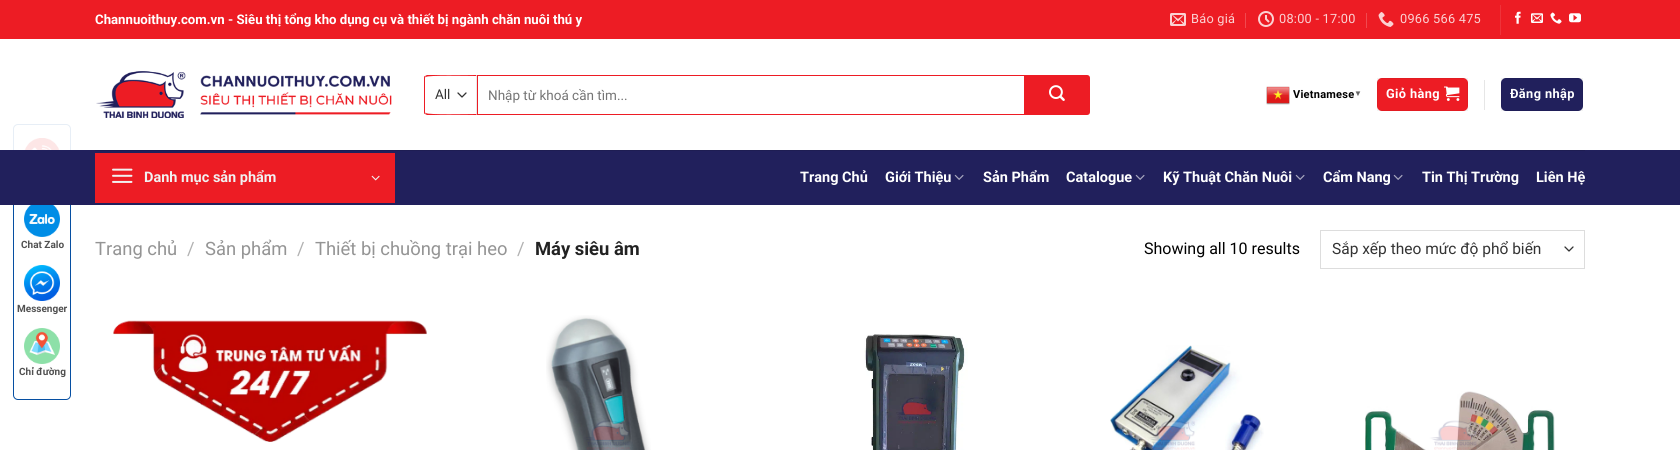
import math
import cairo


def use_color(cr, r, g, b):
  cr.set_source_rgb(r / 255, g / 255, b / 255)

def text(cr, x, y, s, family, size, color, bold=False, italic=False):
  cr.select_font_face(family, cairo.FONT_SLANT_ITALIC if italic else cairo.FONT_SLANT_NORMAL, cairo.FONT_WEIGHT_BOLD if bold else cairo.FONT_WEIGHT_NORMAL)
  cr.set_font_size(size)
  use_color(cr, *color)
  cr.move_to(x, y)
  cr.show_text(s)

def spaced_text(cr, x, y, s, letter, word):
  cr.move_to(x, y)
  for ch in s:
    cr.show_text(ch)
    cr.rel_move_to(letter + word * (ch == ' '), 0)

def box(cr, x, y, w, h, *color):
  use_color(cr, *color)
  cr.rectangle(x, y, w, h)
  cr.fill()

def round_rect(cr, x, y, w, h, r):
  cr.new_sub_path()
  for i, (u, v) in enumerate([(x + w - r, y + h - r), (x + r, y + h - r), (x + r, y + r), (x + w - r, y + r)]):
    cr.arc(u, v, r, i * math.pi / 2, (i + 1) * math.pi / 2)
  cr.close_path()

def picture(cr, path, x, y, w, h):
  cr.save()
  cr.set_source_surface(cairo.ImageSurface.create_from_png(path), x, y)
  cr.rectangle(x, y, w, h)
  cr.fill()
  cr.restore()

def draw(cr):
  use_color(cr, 255, 255, 255)
  cr.paint()
  box(cr, 0, 0, 1680, 39, 237, 28, 36)
  picture(cr, "img_01.png", 1170, 13, 16, 13)
  box(cr, 1245, 13, 1, 15, 241, 73, 80)
  picture(cr, "img_02.png", 1258, 11, 16, 16)
  box(cr, 1366, 13, 1, 15, 241, 73, 80)
  picture(cr, "img_03.png", 1378, 12, 16, 15)
  box(cr, 1500, 5, 1, 30, 239, 51, 58)
  picture(cr, "img_04.png", 1515, 11, 6, 13)
  picture(cr, "img_05.png", 1531, 13, 12, 10)
  picture(cr, "img_06.png", 1550, 12, 12, 12)
  picture(cr, "img_07.png", 1569, 13, 12, 10)
  picture(cr, "img_08.png", 96, 71, 296, 47)
  cr.new_path()
  cr.move_to(458, 93)
  cr.line_to(462, 97)
  cr.line_to(466, 93)
  use_color(cr, 51, 51, 51)
  cr.set_line_width(1.3)
  cr.set_line_cap(cairo.LINE_CAP_ROUND)
  cr.set_line_join(cairo.LINE_JOIN_ROUND)
  cr.stroke()
  use_color(cr, 237, 28, 36)
  cr.new_path()
  cr.move_to(427, 75)
  cr.line_to(425, 76)
  cr.line_to(426, 77)
  cr.curve_to(427, 75, 470, 76, 476, 76)
  cr.line_to(477, 75)
  cr.close_path()
  cr.fill()
  use_color(cr, 234, 234, 234)
  cr.new_path()
  cr.move_to(477, 75)
  cr.line_to(476, 76)
  cr.line_to(476, 114)
  cr.line_to(477, 115)
  cr.close_path()
  cr.fill()
  use_color(cr, 237, 28, 36)
  cr.new_path()
  cr.move_to(477, 115)
  cr.line_to(476, 114)
  cr.curve_to(470, 114, 427, 115, 426, 113)
  cr.line_to(425, 114)
  cr.line_to(427, 115)
  cr.close_path()
  cr.fill()
  cr.new_path()
  cr.move_to(424, 78)
  cr.line_to(424, 112)
  cr.curve_to(424, 113, 424, 114, 425, 114)
  cr.line_to(425.5, 113.5)
  cr.line_to(425, 112)
  cr.line_to(425, 78)
  cr.line_to(425.5, 76.5)
  cr.line_to(425, 76)
  cr.curve_to(424, 76, 424, 77, 424, 78)
  cr.close_path()
  cr.fill()
  cr.rectangle(477.5, 75.5, 547, 39)
  cr.set_line_width(1)
  cr.set_line_cap(cairo.LINE_CAP_BUTT)
  cr.set_line_join(cairo.LINE_JOIN_MITER)
  cr.stroke()
  cr.new_path()
  cr.move_to(1026.5, 76.5)
  cr.line_to(1087, 76.5)
  cr.curve_to(1088, 76.5, 1088.5, 77, 1088.5, 78)
  cr.line_to(1088.5, 112)
  cr.curve_to(1088.5, 113, 1088, 113.5, 1087, 113.5)
  cr.line_to(1026.5, 113.5)
  cr.close_path()
  cr.fill_preserve()
  cr.set_line_width(3)
  cr.stroke()
  picture(cr, "img_09.png", 1049, 85, 16, 16)
  picture(cr, "img_10.png", 1266, 86, 24, 19)
  round_rect(cr, 1377, 78, 91, 33, 5)
  cr.fill()
  cr.rectangle(1377.5, 78.5, 90, 32)
  cr.set_source_rgba(0, 0, 0, 0.05)
  cr.set_line_width(1)
  cr.stroke()
  picture(cr, "img_11.png", 1444, 86, 16, 15)
  box(cr, 1484, 80, 1, 30, 230, 230, 230)
  use_color(cr, 33, 32, 92)
  round_rect(cr, 1501, 78, 82, 33, 5)
  cr.fill()
  cr.rectangle(1501.5, 78.5, 81, 32)
  cr.set_source_rgba(0, 0, 0, 0.05)
  cr.stroke()
  round_rect(cr, 13.5, 124.5, 57, 275, 4.5)
  use_color(cr, 6, 79, 162)
  cr.stroke()
  box(cr, 0, 150, 1680, 55, 33, 32, 92)
  box(cr, 95, 150, 1490, 1, 30, 29, 83)
  picture(cr, "img_20.png", 24, 138, 36, 12)
  cr.set_source_rgba(1, 1, 1, 0.9)
  cr.rectangle(13, 124, 58, 26)
  cr.fill()
  box(cr, 95, 153, 300, 50, 237, 28, 36)
  picture(cr, "img_12.png", 112, 168, 21, 15)
  picture(cr, "img_13.png", 371, 175, 9, 6)
  picture(cr, "img_14.png", 954, 174, 10, 6)
  picture(cr, "img_14.png", 1135, 174, 10, 6)
  picture(cr, "img_14.png", 1295, 174, 10, 6)
  picture(cr, "img_14.png", 1393, 174, 10, 6)
  cr.new_path()
  cr.move_to(1565, 247)
  cr.line_to(1569, 251)
  cr.line_to(1573, 247)
  use_color(cr, 51, 51, 51)
  cr.set_line_width(1.3)
  cr.set_line_cap(cairo.LINE_CAP_ROUND)
  cr.set_line_join(cairo.LINE_JOIN_ROUND)
  cr.stroke()
  cr.rectangle(1320.5, 230.5, 264, 38)
  use_color(cr, 221, 221, 221)
  cr.set_line_width(1)
  cr.set_line_cap(cairo.LINE_CAP_BUTT)
  cr.set_line_join(cairo.LINE_JOIN_MITER)
  cr.stroke()
  picture(cr, "img_15.png", 113, 320, 314, 122)
  picture(cr, "img_16.png", 546, 315, 105, 135)
  picture(cr, "img_17.png", 864, 334, 104, 116)
  picture(cr, "img_18.png", 1110, 345, 154, 105)
  picture(cr, "img_19.png", 1365, 391, 190, 59)
  picture(cr, "img_21.png", 24, 205, 36, 32)
  picture(cr, "img_22.png", 24, 265, 36, 36)
  picture(cr, "img_23.png", 24, 328, 36, 36)
  text(cr, 95, 24, "Channuoithuy.com.vn - Siêu thị tổng kho dụng cụ và thiết bị ngành chăn nuôi thú y", "Roboto", 13.2, (255, 255, 255), bold=True)
  cr.select_font_face("Roboto")
  cr.set_font_size(12.75)
  use_color(cr, 251, 210, 211)
  spaced_text(cr, 1191, 23, "Báo giá", 0.25, 0)
  spaced_text(cr, 1279, 23, "08:00 - 17:00", 0.25, 0)
  spaced_text(cr, 1400, 23, "0966 566 475", 0.25, 0)
  text(cr, 435, 99, "All", "Roboto", 13.5, (51, 51, 51))
  text(cr, 488, 100, "Nhập từ khoá cần tìm...", "Roboto", 13.5, (117, 117, 117))
  cr.select_font_face("Roboto", cairo.FONT_SLANT_NORMAL, cairo.FONT_WEIGHT_BOLD)
  cr.set_font_size(11)
  use_color(cr, 0, 0, 0)
  spaced_text(cr, 1293, 98, "Vietnamese", 0.25, 0)
  cr.select_font_face("Liberation Sans", cairo.FONT_SLANT_NORMAL, cairo.FONT_WEIGHT_BOLD)
  cr.set_font_size(8)
  use_color(cr, 102, 102, 102)
  spaced_text(cr, 1354, 96, "▼", 0.25, 0)
  cr.select_font_face("Roboto", cairo.FONT_SLANT_NORMAL, cairo.FONT_WEIGHT_BOLD)
  cr.set_font_size(12.75)
  use_color(cr, 255, 255, 255)
  spaced_text(cr, 1386, 98, "Giỏ hàng", 0.4, 0)
  spaced_text(cr, 1510, 98, "Đăng nhập", 0.4, 0)
  text(cr, 144, 182, "Danh mục sản phẩm", "Roboto", 14.5, (241, 241, 241), bold=True)
  text(cr, 800, 182, "Trang Chủ", "Roboto", 14.5, (255, 255, 255), bold=True)
  text(cr, 885, 182, "Giới Thiệu", "Roboto", 14.5, (255, 255, 255), bold=True)
  text(cr, 983, 182, "Sản Phẩm", "Roboto", 14.5, (255, 255, 255), bold=True)
  text(cr, 1066, 182, "Catalogue", "Roboto", 14.5, (255, 255, 255), bold=True)
  text(cr, 1163, 182, "Kỹ Thuật Chăn Nuôi", "Roboto", 14.5, (255, 255, 255), bold=True)
  text(cr, 1323, 182, "Cẩm Nang", "Roboto", 14.5, (255, 255, 255), bold=True)
  text(cr, 1422, 182, "Tin Thị Trường", "Roboto", 14.5, (255, 255, 255), bold=True)
  text(cr, 1536, 182, "Liên Hệ", "Roboto", 14.5, (255, 255, 255), bold=True)
  text(cr, 95, 255, "Trang chủ", "Roboto", 18.4, (148, 148, 148))
  text(cr, 187, 255, "/", "Roboto", 18.4, (178, 178, 178))
  text(cr, 205, 255, "Sản phẩm", "Roboto", 18.4, (148, 148, 148))
  text(cr, 297, 255, "/", "Roboto", 18.4, (178, 178, 178))
  text(cr, 315, 255, "Thiết bị chuồng trại heo", "Roboto", 18.4, (148, 148, 148))
  text(cr, 517, 255, "/", "Roboto", 18.4, (178, 178, 178))
  text(cr, 535, 255, "Máy siêu âm", "Roboto", 18.4, (34, 34, 34), bold=True)
  text(cr, 1144, 254, "Showing all 10 results", "Roboto", 16, (0, 0, 0))
  text(cr, 1332, 254, "Sắp xếp theo mức độ phổ biến", "Roboto", 15.5, (51, 51, 51))
  text(cr, 21, 248, "Chat Zalo", "Roboto", 10, (81, 81, 81), bold=True)
  text(cr, 17, 312, "Messenger", "Roboto", 10, (81, 81, 81), bold=True)
  text(cr, 19, 375, "Chỉ đường", "Roboto", 10, (81, 81, 81), bold=True)


surface = cairo.ImageSurface(cairo.FORMAT_RGB24, 1680, 450)
cr = cairo.Context(surface)
options = cairo.FontOptions()
options.set_hint_metrics(cairo.HINT_METRICS_OFF)
options.set_hint_style(cairo.HINT_STYLE_NONE)
cr.set_font_options(options)
cr.set_miter_limit(4)
draw(cr)
surface.write_to_png("out.png")
